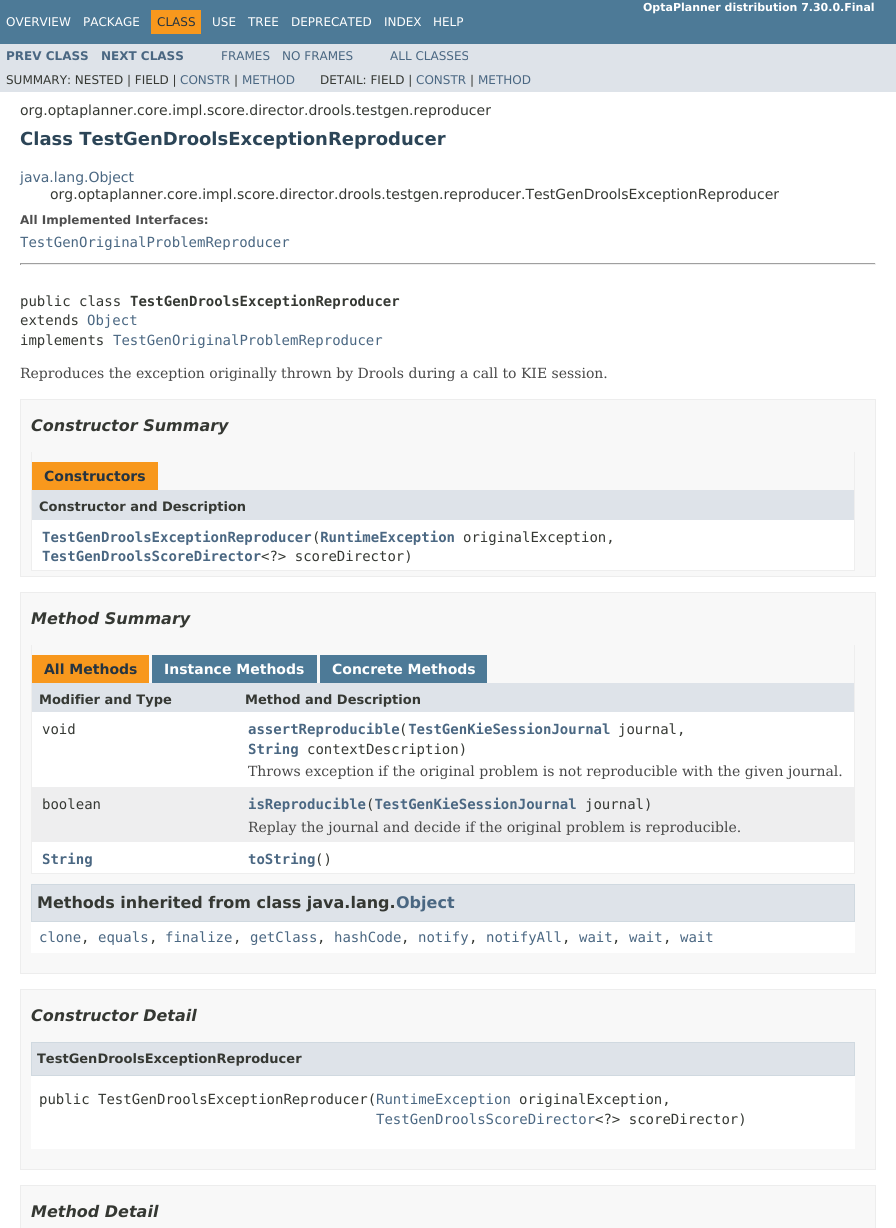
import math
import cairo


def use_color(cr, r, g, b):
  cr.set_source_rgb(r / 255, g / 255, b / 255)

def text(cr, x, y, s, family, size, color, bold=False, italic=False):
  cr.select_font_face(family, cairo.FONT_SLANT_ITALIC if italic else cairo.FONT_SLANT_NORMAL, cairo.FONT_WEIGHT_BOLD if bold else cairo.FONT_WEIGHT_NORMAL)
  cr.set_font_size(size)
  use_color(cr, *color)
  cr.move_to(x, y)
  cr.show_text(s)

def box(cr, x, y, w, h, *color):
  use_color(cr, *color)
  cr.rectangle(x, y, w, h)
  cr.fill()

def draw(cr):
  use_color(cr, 255, 255, 255)
  cr.paint()
  box(cr, 0, 0, 896, 44, 77, 122, 151)
  box(cr, 151, 10, 50, 24, 248, 152, 29)
  box(cr, 0, 44, 896, 48, 222, 227, 233)
  box(cr, 20, 263, 856, 1, 159, 159, 159)
  box(cr, 875, 263, 1, 2, 238, 238, 238)
  box(cr, 20, 264, 856, 1, 238, 238, 238)
  box(cr, 20, 263, 1, 2, 159, 159, 159)
  use_color(cr, 248, 248, 248)
  cr.rectangle(20.5, 399.5, 855, 177)
  cr.fill_preserve()
  use_color(cr, 237, 237, 237)
  cr.set_line_width(1)
  cr.stroke()
  box(cr, 854, 452, 1, 119, 238, 238, 238)
  box(cr, 31, 570, 824, 1, 238, 238, 238)
  box(cr, 31, 452, 1, 119, 238, 238, 238)
  box(cr, 32, 462, 126, 28, 248, 152, 29)
  box(cr, 32, 490, 822, 30, 222, 227, 233)
  box(cr, 32, 520, 822, 50, 255, 255, 255)
  use_color(cr, 248, 248, 248)
  cr.rectangle(20.5, 592.5, 855, 381)
  cr.fill_preserve()
  use_color(cr, 237, 237, 237)
  cr.stroke()
  box(cr, 854, 645, 1, 229, 238, 238, 238)
  box(cr, 31, 873, 824, 1, 238, 238, 238)
  box(cr, 31, 645, 1, 229, 238, 238, 238)
  box(cr, 32, 655, 117, 28, 248, 152, 29)
  box(cr, 152, 655, 165, 28, 77, 122, 151)
  box(cr, 320, 655, 167, 28, 77, 122, 151)
  box(cr, 32, 683, 822, 29, 222, 227, 233)
  box(cr, 32, 712, 822, 75, 255, 255, 255)
  box(cr, 32, 787, 822, 55, 238, 238, 239)
  box(cr, 32, 842, 822, 31, 255, 255, 255)
  box(cr, 31, 922, 824, 31, 255, 255, 255)
  use_color(cr, 222, 227, 233)
  cr.rectangle(31.5, 884.5, 823, 37)
  cr.fill_preserve()
  use_color(cr, 208, 217, 224)
  cr.stroke()
  use_color(cr, 248, 248, 248)
  cr.rectangle(20.5, 989.5, 855, 180)
  cr.fill_preserve()
  use_color(cr, 237, 237, 237)
  cr.stroke()
  box(cr, 31, 1076, 824, 73, 255, 255, 255)
  use_color(cr, 222, 227, 233)
  cr.rectangle(31.5, 1042.5, 823, 33)
  cr.fill_preserve()
  use_color(cr, 208, 217, 224)
  cr.stroke()
  use_color(cr, 248, 248, 248)
  cr.rectangle(20.5, 1185.5, 855, 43)
  cr.fill_preserve()
  use_color(cr, 237, 237, 237)
  cr.stroke()
  text(cr, 643, 11, "OptaPlanner distribution 7.30.0.Final", "DejaVu Sans", 11, (255, 255, 255), bold=True)
  text(cr, 6, 26, "OVERVIEW", "DejaVu Sans", 12, (255, 255, 255))
  text(cr, 83, 26, "PACKAGE", "DejaVu Sans", 12, (255, 255, 255))
  text(cr, 157, 26, "CLASS", "DejaVu Sans", 12, (37, 52, 65))
  text(cr, 212, 26, "USE", "DejaVu Sans", 12, (255, 255, 255))
  text(cr, 248, 26, "TREE", "DejaVu Sans", 12, (255, 255, 255))
  text(cr, 291, 26, "DEPRECATED", "DejaVu Sans", 12, (255, 255, 255))
  text(cr, 384, 26, "INDEX", "DejaVu Sans", 12, (255, 255, 255))
  text(cr, 433, 26, "HELP", "DejaVu Sans", 12, (255, 255, 255))
  text(cr, 6, 60, "PREV CLASS", "DejaVu Sans", 12, (74, 103, 130), bold=True)
  text(cr, 101, 60, "NEXT CLASS", "DejaVu Sans", 12, (74, 103, 130), bold=True)
  text(cr, 221, 60, "FRAMES", "DejaVu Sans", 12, (74, 103, 130))
  text(cr, 282, 60, "NO FRAMES", "DejaVu Sans", 12, (74, 103, 130))
  text(cr, 390, 60, "ALL CLASSES", "DejaVu Sans", 12, (74, 103, 130))
  text(cr, 6, 84, "SUMMARY: NESTED | FIELD |", "DejaVu Sans", 12, (53, 56, 51))
  text(cr, 180, 84, "CONSTR", "DejaVu Sans", 12, (74, 103, 130))
  text(cr, 234, 84, "|", "DejaVu Sans", 12, (53, 56, 51))
  text(cr, 242, 84, "METHOD", "DejaVu Sans", 12, (74, 103, 130))
  text(cr, 320, 84, "DETAIL: FIELD |", "DejaVu Sans", 12, (53, 56, 51))
  text(cr, 416, 84, "CONSTR", "DejaVu Sans", 12, (74, 103, 130))
  text(cr, 470, 84, "|", "DejaVu Sans", 12, (53, 56, 51))
  text(cr, 478, 84, "METHOD", "DejaVu Sans", 12, (74, 103, 130))
  text(cr, 20, 115, "org.optaplanner.core.impl.score.director.drools.testgen.reproducer", "DejaVu Sans", 14, (53, 56, 51))
  text(cr, 20, 145, "Class TestGenDroolsExceptionReproducer", "DejaVu Sans", 18, (44, 69, 87), bold=True)
  text(cr, 20, 182, "java.lang.Object", "DejaVu Sans", 14, (74, 103, 130))
  text(cr, 50, 199, "org.optaplanner.core.impl.score.director.drools.testgen.reproducer.TestGenDroolsExceptionReproducer", "DejaVu Sans", 14, (53, 56, 51))
  text(cr, 20, 224, "All Implemented Interfaces:", "DejaVu Sans", 12, (78, 78, 78), bold=True)
  text(cr, 20, 247, "TestGenOriginalProblemReproducer", "DejaVu Sans Mono", 14, (74, 103, 130))
  text(cr, 20, 306, "public class", "DejaVu Sans Mono", 14, (53, 56, 51))
  text(cr, 130, 306, "TestGenDroolsExceptionReproducer", "DejaVu Sans Mono", 14, (53, 56, 51), bold=True)
  text(cr, 20, 325, "extends", "DejaVu Sans Mono", 14, (53, 56, 51))
  text(cr, 87, 325, "Object", "DejaVu Sans Mono", 14, (74, 103, 130))
  text(cr, 20, 345, "implements", "DejaVu Sans Mono", 14, (53, 56, 51))
  text(cr, 113, 345, "TestGenOriginalProblemReproducer", "DejaVu Sans Mono", 14, (74, 103, 130))
  text(cr, 20, 378, "Reproduces the exception originally thrown by Drools during a call to KIE session.", "DejaVu Serif", 14, (71, 71, 71))
  text(cr, 31, 431, "Constructor Summary", "DejaVu Sans", 16, (53, 56, 51), bold=True, italic=True)
  text(cr, 44, 481, "Constructors", "DejaVu Sans", 14, (37, 52, 65), bold=True)
  text(cr, 39, 511, "Constructor and Description", "DejaVu Sans", 13, (53, 56, 51), bold=True)
  text(cr, 42, 542, "TestGenDroolsExceptionReproducer RuntimeException", "DejaVu Sans Mono", 14, (74, 103, 130), bold=True)
  text(cr, 312, 542, "(", "DejaVu Sans Mono", 14, (53, 56, 51))
  text(cr, 463, 542, "originalException,", "DejaVu Sans Mono", 14, (53, 56, 51))
  text(cr, 42, 561, "TestGenDroolsScoreDirector", "DejaVu Sans Mono", 14, (74, 103, 130), bold=True)
  text(cr, 261, 561, "<?> scoreDirector)", "DejaVu Sans Mono", 14, (53, 56, 51))
  text(cr, 31, 624, "Method Summary", "DejaVu Sans", 16, (53, 56, 51), bold=True, italic=True)
  text(cr, 44, 674, "All Methods", "DejaVu Sans", 14, (37, 52, 65), bold=True)
  text(cr, 164, 674, "Instance Methods", "DejaVu Sans", 14, (255, 255, 255), bold=True)
  text(cr, 332, 674, "Concrete Methods", "DejaVu Sans", 14, (255, 255, 255), bold=True)
  text(cr, 39, 704, "Modifier and Type", "DejaVu Sans", 13, (53, 56, 51), bold=True)
  text(cr, 245, 704, "Method and Description", "DejaVu Sans", 13, (53, 56, 51), bold=True)
  text(cr, 42, 734, "void", "DejaVu Sans Mono", 14, (53, 56, 51))
  text(cr, 248, 734, "assertReproducible TestGenKieSessionJournal", "DejaVu Sans Mono", 14, (74, 103, 130), bold=True)
  text(cr, 399, 734, "(", "DejaVu Sans Mono", 14, (53, 56, 51))
  text(cr, 618, 734, "journal,", "DejaVu Sans Mono", 14, (53, 56, 51))
  text(cr, 248, 754, "String", "DejaVu Sans Mono", 14, (74, 103, 130), bold=True)
  text(cr, 307, 754, "contextDescription)", "DejaVu Sans Mono", 14, (53, 56, 51))
  text(cr, 248, 776, "Throws exception if the original problem is not reproducible with the given journal.", "DejaVu Serif", 14, (71, 71, 71))
  text(cr, 42, 809, "boolean", "DejaVu Sans Mono", 14, (53, 56, 51))
  text(cr, 248, 809, "isReproducible TestGenKieSessionJournal", "DejaVu Sans Mono", 14, (74, 103, 130), bold=True)
  text(cr, 366, 809, "(", "DejaVu Sans Mono", 14, (53, 56, 51))
  text(cr, 585, 809, "journal)", "DejaVu Sans Mono", 14, (53, 56, 51))
  text(cr, 248, 832, "Replay the journal and decide if the original problem is reproducible.", "DejaVu Serif", 14, (71, 71, 71))
  text(cr, 42, 864, "String", "DejaVu Sans Mono", 14, (74, 103, 130), bold=True)
  text(cr, 248, 864, "toString", "DejaVu Sans Mono", 14, (74, 103, 130), bold=True)
  text(cr, 315, 864, "()", "DejaVu Sans Mono", 14, (53, 56, 51))
  text(cr, 37, 908, "Methods inherited from class java.lang.", "DejaVu Sans", 16, (53, 56, 51), bold=True)
  text(cr, 396, 908, "Object", "DejaVu Sans", 16, (74, 103, 130), bold=True)
  text(cr, 39, 942, "clone", "DejaVu Sans Mono", 14, (74, 103, 130))
  text(cr, 81, 942, ",", "DejaVu Sans Mono", 14, (53, 56, 51))
  text(cr, 98, 942, "equals", "DejaVu Sans Mono", 14, (74, 103, 130))
  text(cr, 149, 942, ",", "DejaVu Sans Mono", 14, (53, 56, 51))
  text(cr, 165, 942, "finalize", "DejaVu Sans Mono", 14, (74, 103, 130))
  text(cr, 233, 942, ",", "DejaVu Sans Mono", 14, (53, 56, 51))
  text(cr, 250, 942, "getClass", "DejaVu Sans Mono", 14, (74, 103, 130))
  text(cr, 317, 942, ",", "DejaVu Sans Mono", 14, (53, 56, 51))
  text(cr, 334, 942, "hashCode", "DejaVu Sans Mono", 14, (74, 103, 130))
  text(cr, 401, 942, ",", "DejaVu Sans Mono", 14, (53, 56, 51))
  text(cr, 418, 942, "notify", "DejaVu Sans Mono", 14, (74, 103, 130))
  text(cr, 469, 942, ",", "DejaVu Sans Mono", 14, (53, 56, 51))
  text(cr, 486, 942, "notifyAll", "DejaVu Sans Mono", 14, (74, 103, 130))
  text(cr, 562, 942, ",", "DejaVu Sans Mono", 14, (53, 56, 51))
  text(cr, 579, 942, "wait", "DejaVu Sans Mono", 14, (74, 103, 130))
  text(cr, 612, 942, ",", "DejaVu Sans Mono", 14, (53, 56, 51))
  text(cr, 629, 942, "wait", "DejaVu Sans Mono", 14, (74, 103, 130))
  text(cr, 663, 942, ",", "DejaVu Sans Mono", 14, (53, 56, 51))
  text(cr, 680, 942, "wait", "DejaVu Sans Mono", 14, (74, 103, 130))
  text(cr, 31, 1021, "Constructor Detail", "DejaVu Sans", 16, (53, 56, 51), bold=True, italic=True)
  text(cr, 37, 1063, "TestGenDroolsExceptionReproducer", "DejaVu Sans", 13, (53, 56, 51), bold=True)
  text(cr, 39, 1104, "public TestGenDroolsExceptionReproducer(", "DejaVu Sans Mono", 14, (53, 56, 51))
  text(cr, 376, 1104, "RuntimeException", "DejaVu Sans Mono", 14, (74, 103, 130))
  text(cr, 519, 1104, "originalException,", "DejaVu Sans Mono", 14, (53, 56, 51))
  text(cr, 376, 1124, "TestGenDroolsScoreDirector", "DejaVu Sans Mono", 14, (74, 103, 130))
  text(cr, 595, 1124, "<?> scoreDirector)", "DejaVu Sans Mono", 14, (53, 56, 51))
  text(cr, 31, 1217, "Method Detail", "DejaVu Sans", 16, (53, 56, 51), bold=True, italic=True)


surface = cairo.ImageSurface(cairo.FORMAT_RGB24, 896, 1228)
cr = cairo.Context(surface)
options = cairo.FontOptions()
options.set_hint_metrics(cairo.HINT_METRICS_OFF)
options.set_hint_style(cairo.HINT_STYLE_NONE)
cr.set_font_options(options)
cr.set_miter_limit(4)
draw(cr)
surface.write_to_png("out.png")
